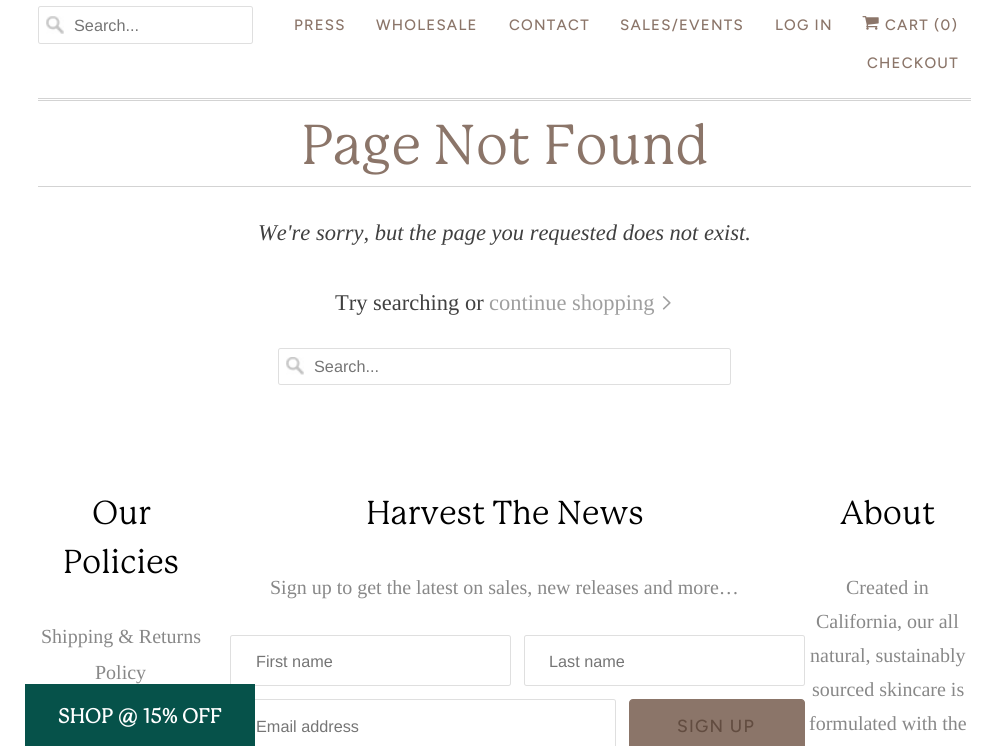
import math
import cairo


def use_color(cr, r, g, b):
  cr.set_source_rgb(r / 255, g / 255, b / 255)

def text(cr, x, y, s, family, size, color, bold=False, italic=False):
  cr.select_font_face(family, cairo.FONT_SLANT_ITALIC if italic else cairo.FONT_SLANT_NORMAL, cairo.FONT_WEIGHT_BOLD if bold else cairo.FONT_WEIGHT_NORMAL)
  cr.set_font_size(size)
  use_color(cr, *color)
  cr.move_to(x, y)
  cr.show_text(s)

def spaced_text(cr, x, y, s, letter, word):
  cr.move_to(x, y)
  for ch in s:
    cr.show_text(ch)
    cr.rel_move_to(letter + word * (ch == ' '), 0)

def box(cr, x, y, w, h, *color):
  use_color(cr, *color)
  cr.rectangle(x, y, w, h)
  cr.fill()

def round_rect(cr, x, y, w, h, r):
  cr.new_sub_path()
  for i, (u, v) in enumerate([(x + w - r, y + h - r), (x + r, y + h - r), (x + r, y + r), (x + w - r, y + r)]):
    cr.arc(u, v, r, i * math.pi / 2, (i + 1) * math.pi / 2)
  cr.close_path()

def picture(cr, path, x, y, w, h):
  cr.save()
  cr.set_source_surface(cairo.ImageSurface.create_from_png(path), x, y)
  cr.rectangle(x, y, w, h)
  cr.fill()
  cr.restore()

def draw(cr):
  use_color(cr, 255, 255, 255)
  cr.paint()
  picture(cr, "img_01.png", 46, 16, 18, 18)
  round_rect(cr, 38.5, 6.5, 214, 37, 2)
  use_color(cr, 223, 223, 223)
  cr.set_line_width(1)
  cr.stroke()
  picture(cr, "img_02.png", 862, 16, 17, 14)
  box(cr, 38, 98, 933, 1, 211, 211, 211)
  box(cr, 38, 100, 933, 1, 211, 211, 211)
  box(cr, 38, 186, 933, 1, 211, 211, 211)
  picture(cr, "img_03.png", 662, 296, 9, 14)
  picture(cr, "img_04.png", 286, 357, 18, 18)
  round_rect(cr, 278.5, 348.5, 452, 36, 2)
  use_color(cr, 223, 223, 223)
  cr.stroke()
  round_rect(cr, 230.5, 635.5, 280, 50, 2)
  cr.stroke()
  round_rect(cr, 524.5, 635.5, 280, 50, 2)
  cr.stroke()
  round_rect(cr, 230.5, 699.5, 385, 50, 2)
  cr.stroke()
  use_color(cr, 139, 117, 105)
  round_rect(cr, 629.5, 699.5, 175, 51, 3.5)
  cr.fill_preserve()
  cr.stroke()
  box(cr, 25, 684, 230, 62, 6, 82, 74)
  text(cr, 74, 31, "Search...", "Liberation Sans", 16.25, (117, 117, 117))
  cr.select_font_face("Figtree Medium")
  cr.set_font_size(15)
  use_color(cr, 139, 117, 105)
  spaced_text(cr, 294, 30, "PRESS", 1.25, 0)
  spaced_text(cr, 376, 30, "WHOLESALE", 1.25, 0)
  spaced_text(cr, 509, 30, "CONTACT", 1.25, 0)
  spaced_text(cr, 620, 30, "SALES/EVENTS", 1.25, 0)
  spaced_text(cr, 775, 30, "LOG IN", 1.25, 0)
  spaced_text(cr, 885, 30, "CART (0)", 1.25, 0)
  spaced_text(cr, 867, 68, "CHECKOUT", 1.25, 0)
  text(cr, 301, 164, "Page Not Found", "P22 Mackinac", 55, (139, 117, 105))
  text(cr, 258, 240, "We're sorry, but the page you requested does not exist.", "Liberation Serif", 22.5, (64, 64, 64), italic=True)
  text(cr, 335, 310, "Try searching or", "Liberation Serif", 22.5, (64, 64, 64))
  text(cr, 489, 310, "continue shopping", "Liberation Serif", 22.5, (159, 159, 159))
  text(cr, 314, 372, "Search...", "Liberation Sans", 16.25, (117, 117, 117))
  text(cr, 92, 524, "Our", "P22 Mackinac", 32.5, (0, 0, 0))
  text(cr, 63, 573, "Policies", "P22 Mackinac", 32.5, (0, 0, 0))
  text(cr, 41, 643, "Shipping & Returns", "Liberation Serif", 20, (136, 136, 136))
  text(cr, 95, 679, "Policy", "Liberation Serif", 20, (136, 136, 136))
  text(cr, 366, 524, "Harvest The News", "P22 Mackinac", 32.5, (0, 0, 0))
  text(cr, 270, 594, "Sign up to get the latest on sales, new releases and more…", "Liberation Serif", 20, (136, 136, 136))
  text(cr, 256, 667, "First name", "Liberation Sans", 16.25, (117, 117, 117))
  text(cr, 549, 667, "Last name", "Liberation Sans", 16.25, (117, 117, 117))
  text(cr, 256, 732, "Email address", "Liberation Sans", 16.25, (117, 117, 117))
  cr.select_font_face("Figtree Medium")
  cr.set_font_size(17.5)
  use_color(cr, 98, 76, 64)
  spaced_text(cr, 677, 732, "SIGN UP", 1.25, 0)
  text(cr, 840, 524, "About", "P22 Mackinac", 32.5, (0, 0, 0))
  text(cr, 846, 594, "Created in", "Liberation Serif", 20, (136, 136, 136))
  text(cr, 816, 628, "California, our all", "Liberation Serif", 20, (136, 136, 136))
  text(cr, 810, 662, "natural, sustainably", "Liberation Serif", 20, (136, 136, 136))
  text(cr, 812, 696, "sourced skincare is", "Liberation Serif", 20, (136, 136, 136))
  text(cr, 809, 730, "formulated with the", "Liberation Serif", 20, (136, 136, 136))
  text(cr, 58, 723, "SHOP @ 15% OFF", "P22 Mackinac", 20, (255, 255, 255), bold=True)


surface = cairo.ImageSurface(cairo.FORMAT_RGB24, 1008, 746)
cr = cairo.Context(surface)
options = cairo.FontOptions()
options.set_hint_metrics(cairo.HINT_METRICS_OFF)
options.set_hint_style(cairo.HINT_STYLE_NONE)
cr.set_font_options(options)
cr.set_miter_limit(4)
draw(cr)
surface.write_to_png("out.png")
